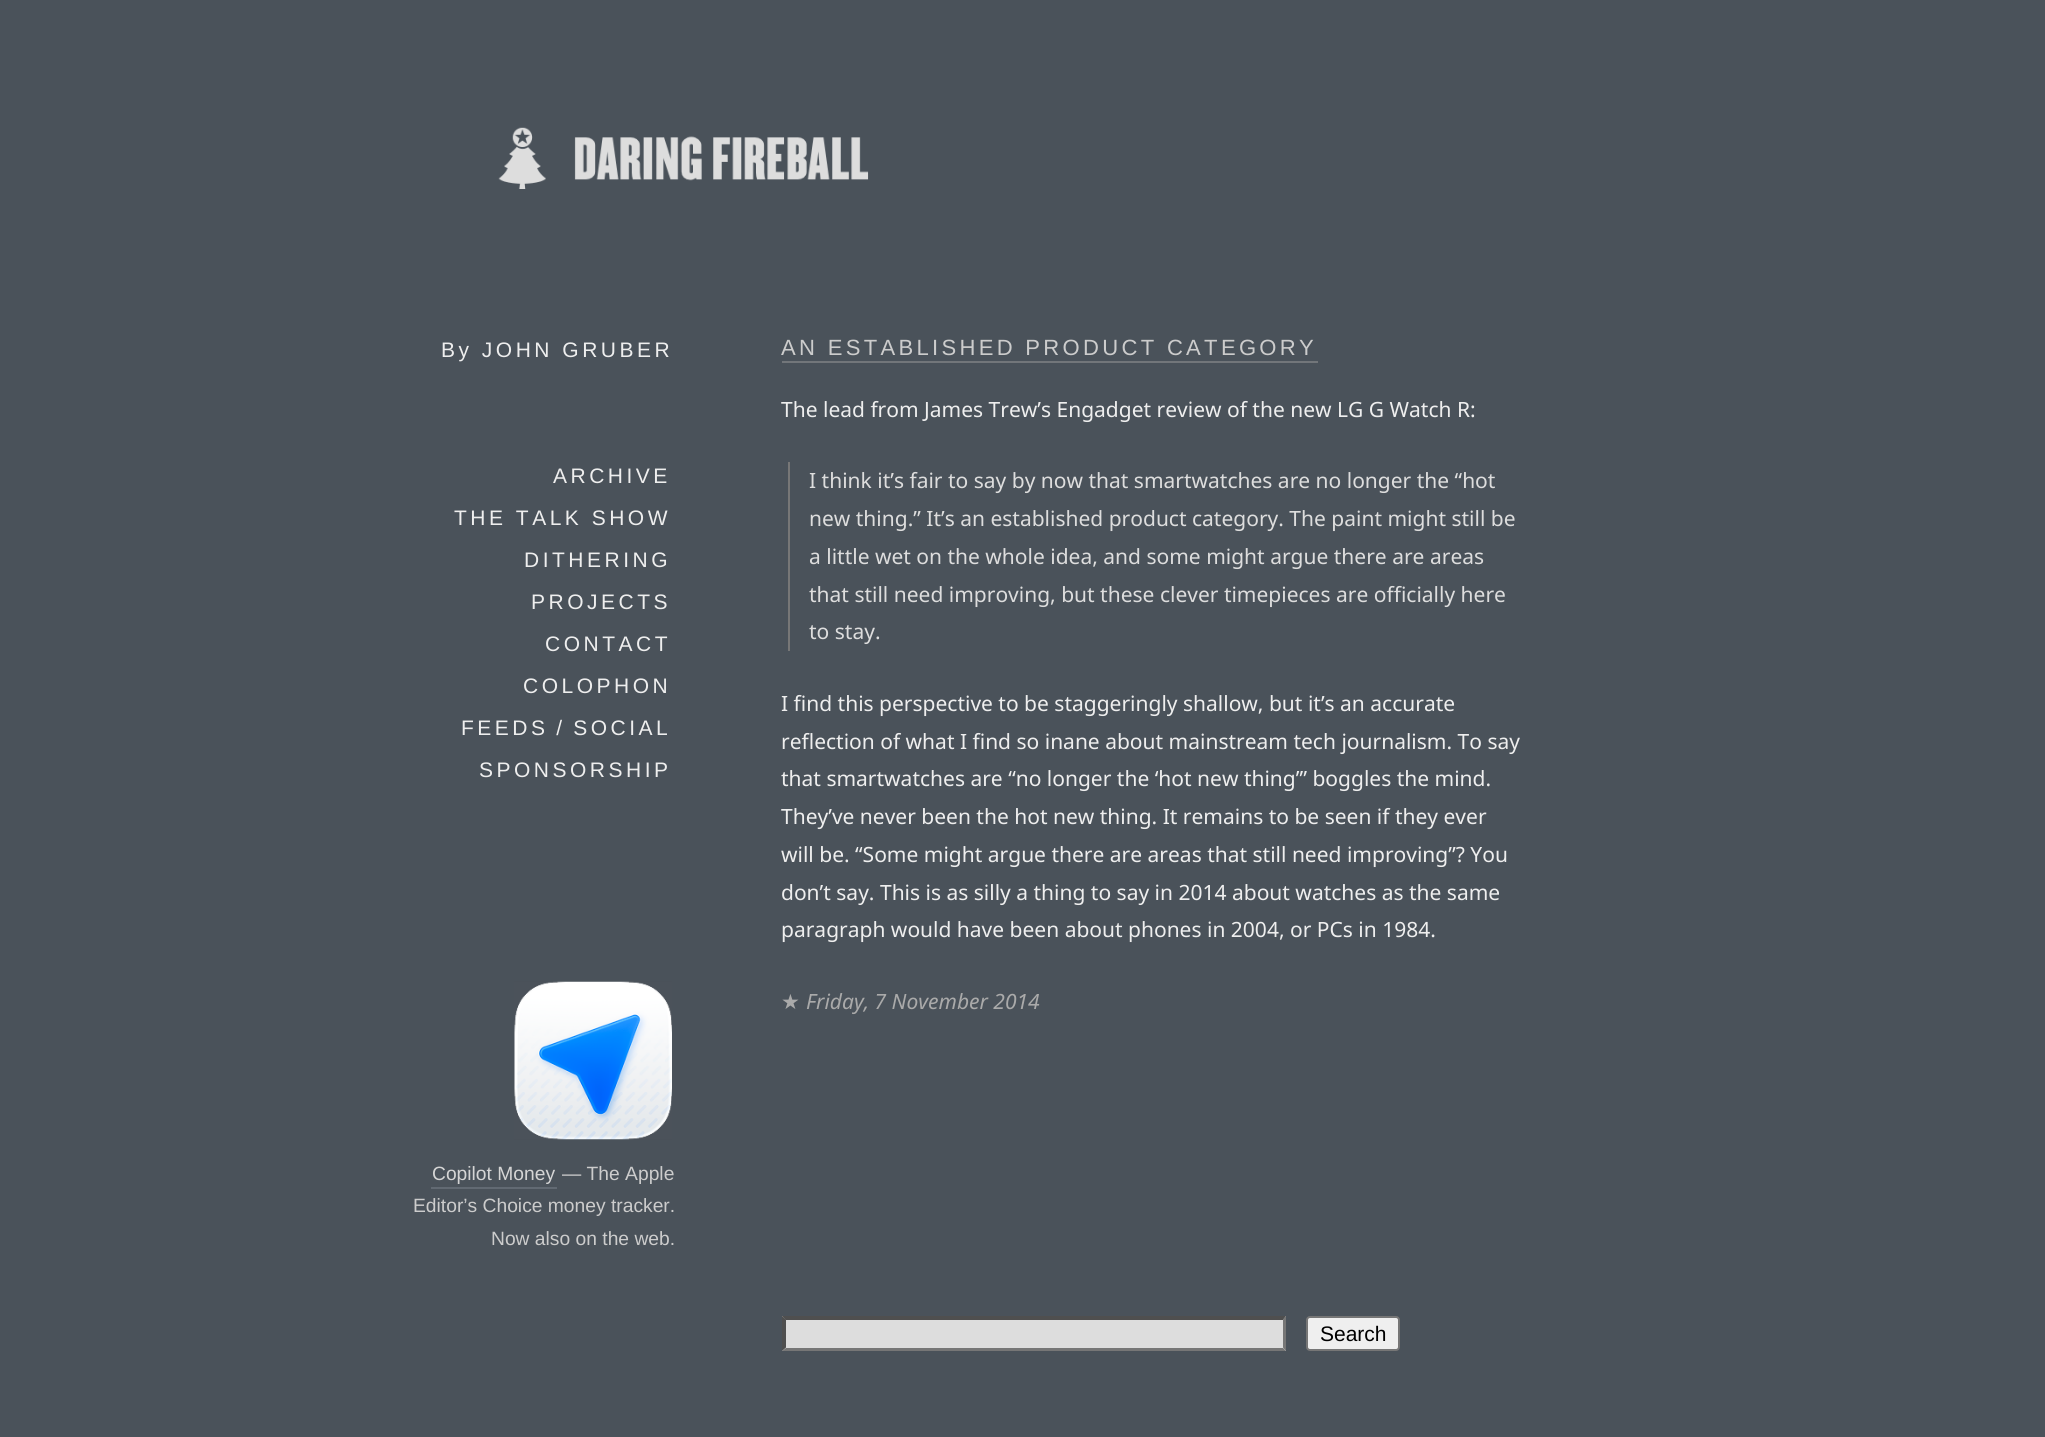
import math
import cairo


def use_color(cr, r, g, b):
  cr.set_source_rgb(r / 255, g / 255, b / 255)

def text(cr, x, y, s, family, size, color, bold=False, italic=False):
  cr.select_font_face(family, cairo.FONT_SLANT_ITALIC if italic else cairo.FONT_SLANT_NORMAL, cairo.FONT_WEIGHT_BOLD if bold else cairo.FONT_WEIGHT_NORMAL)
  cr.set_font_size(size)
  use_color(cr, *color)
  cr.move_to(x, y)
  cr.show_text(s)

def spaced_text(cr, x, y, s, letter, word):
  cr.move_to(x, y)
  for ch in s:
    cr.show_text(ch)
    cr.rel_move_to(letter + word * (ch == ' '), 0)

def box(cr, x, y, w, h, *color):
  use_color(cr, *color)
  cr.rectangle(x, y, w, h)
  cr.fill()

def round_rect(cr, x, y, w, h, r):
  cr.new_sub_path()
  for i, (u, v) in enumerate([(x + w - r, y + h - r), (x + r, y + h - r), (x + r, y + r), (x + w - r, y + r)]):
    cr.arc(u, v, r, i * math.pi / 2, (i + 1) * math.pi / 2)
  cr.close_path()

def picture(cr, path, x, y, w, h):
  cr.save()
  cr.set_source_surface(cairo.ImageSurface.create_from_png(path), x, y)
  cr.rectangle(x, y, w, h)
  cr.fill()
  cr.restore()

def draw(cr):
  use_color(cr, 74, 82, 90)
  cr.paint()
  picture(cr, "img_01.png", 498, 127, 371, 62)
  picture(cr, "img_02.png", 514, 981, 158, 159)
  box(cr, 431, 1187, 126, 2, 98, 106, 115)
  box(cr, 782, 361, 536, 2, 114, 118, 122)
  box(cr, 788, 462, 2, 189, 119, 119, 119)
  box(cr, 782, 1316, 504, 35, 221, 221, 221)
  use_color(cr, 79, 79, 79)
  cr.new_path()
  cr.move_to(782, 1316)
  cr.line_to(1286, 1316)
  cr.line_to(1283, 1320)
  cr.line_to(786, 1320)
  cr.close_path()
  cr.fill()
  use_color(cr, 118, 118, 118)
  cr.new_path()
  cr.move_to(1286, 1316)
  cr.line_to(1286, 1351)
  cr.line_to(1283, 1347.5)
  cr.line_to(1283, 1319.5)
  cr.close_path()
  cr.fill()
  cr.new_path()
  cr.move_to(1286, 1351)
  cr.line_to(782, 1351)
  cr.line_to(786, 1348)
  cr.line_to(1283, 1348)
  cr.close_path()
  cr.fill()
  use_color(cr, 79, 79, 79)
  cr.new_path()
  cr.move_to(782, 1351)
  cr.line_to(782, 1316)
  cr.line_to(786, 1319.5)
  cr.line_to(786, 1347.5)
  cr.close_path()
  cr.fill()
  use_color(cr, 239, 239, 239)
  round_rect(cr, 1307, 1317, 92, 33, 3)
  cr.fill_preserve()
  use_color(cr, 118, 118, 118)
  cr.stroke()
  cr.select_font_face("Liberation Sans")
  cr.set_font_size(21)
  use_color(cr, 238, 238, 238)
  spaced_text(cr, 441, 357, "By JOHN GRUBER", 3.5, 0)
  spaced_text(cr, 553, 483, "ARCHIVE", 3.5, 0)
  spaced_text(cr, 454, 525, "THE TALK SHOW", 3.5, 0)
  spaced_text(cr, 524, 567, "DITHERING", 3.5, 0)
  spaced_text(cr, 531, 609, "PROJECTS", 3.5, 0)
  spaced_text(cr, 545, 651, "CONTACT", 3.5, 0)
  spaced_text(cr, 523, 693, "COLOPHON", 3.5, 0)
  spaced_text(cr, 461, 735, "FEEDS / SOCIAL", 3.5, 0)
  spaced_text(cr, 479, 777, "SPONSORSHIP", 3.5, 0)
  text(cr, 432, 1180, "Copilot Money", "Liberation Sans", 19.25, (213, 213, 213))
  text(cr, 562, 1180, "— The Apple", "Liberation Sans", 19.25, (204, 204, 204))
  text(cr, 413, 1212, "Editor’s Choice money tracker.", "Liberation Sans", 19.25, (204, 204, 204))
  text(cr, 491, 1245, "Now also on the web.", "Liberation Sans", 19.25, (204, 204, 204))
  cr.set_font_size(22.05)
  spaced_text(cr, 781, 355, "AN ESTABLISHED PRODUCT CATEGORY", 3.3, 0)
  text(cr, 781, 417, "The lead from James Trew’s Engadget review of the new LG G Watch R:", "Noto Sans", 21, (238, 238, 238))
  text(cr, 809, 488, "I think it’s fair to say by now that smartwatches are no longer the “hot", "Noto Sans", 21, (221, 221, 221))
  text(cr, 809, 526, "new thing.” It’s an established product category. The paint might still be", "Noto Sans", 21, (221, 221, 221))
  text(cr, 809, 564, "a little wet on the whole idea, and some might argue there are areas", "Noto Sans", 21, (221, 221, 221))
  text(cr, 809, 602, "that still need improving, but these clever timepieces are officially here", "Noto Sans", 21, (221, 221, 221))
  text(cr, 809, 639, "to stay.", "Noto Sans", 21, (221, 221, 221))
  text(cr, 781, 711, "I find this perspective to be staggeringly shallow, but it’s an accurate", "Noto Sans", 21, (238, 238, 238))
  text(cr, 781, 749, "reflection of what I find so inane about mainstream tech journalism. To say", "Noto Sans", 21, (238, 238, 238))
  text(cr, 781, 786, "that smartwatches are “no longer the ‘hot new thing’” boggles the mind.", "Noto Sans", 21, (238, 238, 238))
  text(cr, 781, 824, "They’ve never been the hot new thing. It remains to be seen if they ever", "Noto Sans", 21, (238, 238, 238))
  text(cr, 781, 862, "will be. “Some might argue there are areas that still need improving”? You", "Noto Sans", 21, (238, 238, 238))
  text(cr, 781, 900, "don’t say. This is as silly a thing to say in 2014 about watches as the same", "Noto Sans", 21, (238, 238, 238))
  text(cr, 781, 937, "paragraph would have been about phones in 2004, or PCs in 1984.", "Noto Sans", 21, (238, 238, 238))
  text(cr, 781, 1009, "★", "DejaVu Sans", 21, (170, 170, 170))
  text(cr, 806, 1009, "Friday, 7 November 2014", "Noto Sans", 21, (170, 170, 170), italic=True)
  text(cr, 1320, 1341, "Search", "Liberation Sans", 21, (0, 0, 0))


surface = cairo.ImageSurface(cairo.FORMAT_RGB24, 2045, 1437)
cr = cairo.Context(surface)
options = cairo.FontOptions()
options.set_hint_metrics(cairo.HINT_METRICS_OFF)
options.set_hint_style(cairo.HINT_STYLE_NONE)
cr.set_font_options(options)
cr.set_miter_limit(4)
draw(cr)
surface.write_to_png("out.png")
